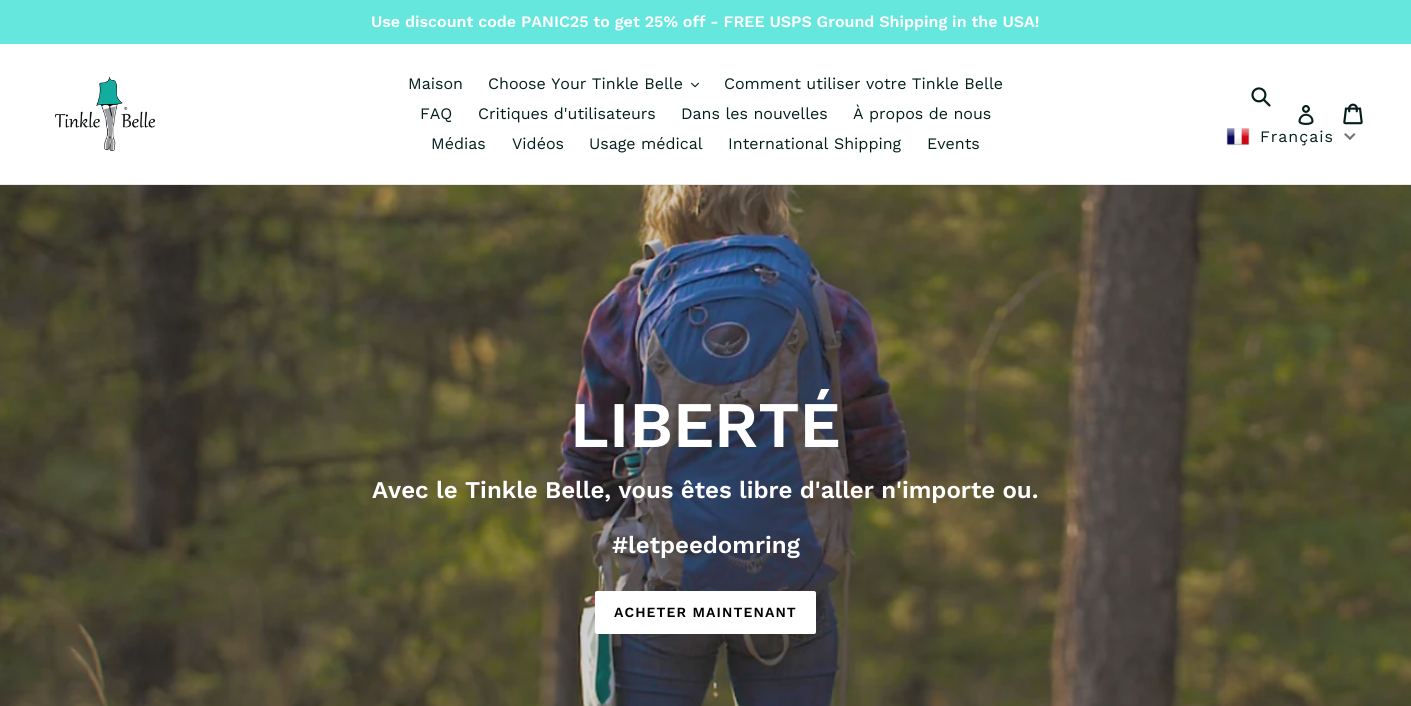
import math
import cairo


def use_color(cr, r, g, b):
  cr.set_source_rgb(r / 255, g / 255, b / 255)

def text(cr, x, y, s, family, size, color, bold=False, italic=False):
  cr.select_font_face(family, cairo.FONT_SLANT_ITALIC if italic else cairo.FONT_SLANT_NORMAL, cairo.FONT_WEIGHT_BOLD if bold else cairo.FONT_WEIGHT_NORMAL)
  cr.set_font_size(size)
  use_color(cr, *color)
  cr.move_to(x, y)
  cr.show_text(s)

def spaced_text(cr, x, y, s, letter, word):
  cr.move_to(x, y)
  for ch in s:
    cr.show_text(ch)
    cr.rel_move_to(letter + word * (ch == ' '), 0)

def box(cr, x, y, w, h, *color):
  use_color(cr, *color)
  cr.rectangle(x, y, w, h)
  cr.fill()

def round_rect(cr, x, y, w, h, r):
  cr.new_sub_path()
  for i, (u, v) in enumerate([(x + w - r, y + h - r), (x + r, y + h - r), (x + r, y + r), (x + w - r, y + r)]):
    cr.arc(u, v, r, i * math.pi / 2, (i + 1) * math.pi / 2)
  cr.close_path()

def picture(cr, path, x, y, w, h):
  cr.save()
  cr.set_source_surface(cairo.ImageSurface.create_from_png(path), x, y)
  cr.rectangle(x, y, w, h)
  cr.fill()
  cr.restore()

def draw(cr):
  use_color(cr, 255, 255, 255)
  cr.paint()
  box(cr, 0, 0, 1411, 44, 102, 231, 222)
  box(cr, 0, 184, 1411, 1, 232, 233, 235)
  picture(cr, "img_01.png", 55, 77, 100, 74)
  picture(cr, "img_02.png", 691, 82, 8, 6)
  picture(cr, "img_03.png", 1251, 87, 20, 20)
  picture(cr, "img_04.png", 1298, 105, 16, 20)
  picture(cr, "img_05.png", 1343, 103, 20, 22)
  picture(cr, "img_06.png", 1226, 128, 24, 18)
  use_color(cr, 116, 116, 116)
  cr.new_path()
  cr.move_to(1354, 133)
  cr.line_to(1355.5, 134.5)
  cr.line_to(1350, 140)
  cr.line_to(1348.5, 138.5)
  cr.close_path()
  cr.fill()
  cr.new_path()
  cr.move_to(1345.5, 133)
  cr.line_to(1351.5, 138.5)
  cr.line_to(1350, 140)
  cr.line_to(1344, 134.5)
  cr.close_path()
  cr.fill()
  picture(cr, "img_07.png", 0, 185, 1411, 521)
  use_color(cr, 255, 255, 255)
  round_rect(cr, 595, 591, 221, 43, 2)
  cr.fill()
  text(cr, 371, 27, "Use discount code PANIC25 to get 25% off - FREE USPS Ground Shipping in the USA!", "Work Sans SemiBold", 16, (255, 255, 255))
  text(cr, 408, 89, "Maison", "Work Sans", 16, (4, 30, 28))
  text(cr, 488, 89, "Choose Your Tinkle Belle", "Work Sans", 16, (4, 30, 28))
  text(cr, 724, 89, "Comment utiliser votre Tinkle Belle", "Work Sans", 16, (4, 30, 28))
  text(cr, 420, 119, "FAQ", "Work Sans", 16, (4, 30, 28))
  text(cr, 478, 119, "Critiques d'utilisateurs", "Work Sans", 16, (4, 30, 28))
  text(cr, 681, 119, "Dans les nouvelles", "Work Sans", 16, (4, 30, 28))
  text(cr, 853, 119, "À propos de nous", "Work Sans", 16, (4, 30, 28))
  text(cr, 431, 149, "Médias", "Work Sans", 16, (4, 30, 28))
  text(cr, 512, 149, "Vidéos", "Work Sans", 16, (4, 30, 28))
  text(cr, 589, 149, "Usage médical", "Work Sans", 16, (4, 30, 28))
  text(cr, 728, 149, "International Shipping", "Work Sans", 16, (4, 30, 28))
  text(cr, 927, 149, "Events", "Work Sans", 16, (4, 30, 28))
  spaced_text(cr, 1260, 142, "Français", 1, 0)
  text(cr, 570, 447, "LIBERTÉ", "Work Sans SemiBold", 65, (255, 255, 255))
  text(cr, 372, 498, "Avec le Tinkle Belle, vous êtes libre d'aller n'importe ou.", "Work Sans SemiBold", 24, (255, 255, 255))
  text(cr, 612, 553, "#letpeedomring", "Work Sans SemiBold", 24, (255, 255, 255))
  cr.set_font_size(14)
  use_color(cr, 0, 0, 0)
  spaced_text(cr, 614, 617, "ACHETER MAINTENANT", 1.1, 0)


surface = cairo.ImageSurface(cairo.FORMAT_RGB24, 1411, 706)
cr = cairo.Context(surface)
options = cairo.FontOptions()
options.set_hint_metrics(cairo.HINT_METRICS_OFF)
options.set_hint_style(cairo.HINT_STYLE_NONE)
cr.set_font_options(options)
cr.set_miter_limit(4)
draw(cr)
surface.write_to_png("out.png")
